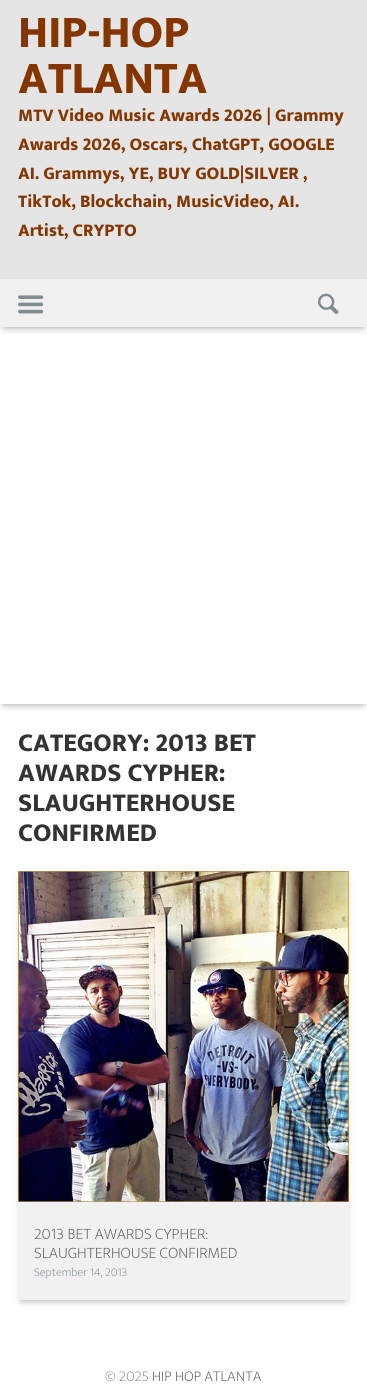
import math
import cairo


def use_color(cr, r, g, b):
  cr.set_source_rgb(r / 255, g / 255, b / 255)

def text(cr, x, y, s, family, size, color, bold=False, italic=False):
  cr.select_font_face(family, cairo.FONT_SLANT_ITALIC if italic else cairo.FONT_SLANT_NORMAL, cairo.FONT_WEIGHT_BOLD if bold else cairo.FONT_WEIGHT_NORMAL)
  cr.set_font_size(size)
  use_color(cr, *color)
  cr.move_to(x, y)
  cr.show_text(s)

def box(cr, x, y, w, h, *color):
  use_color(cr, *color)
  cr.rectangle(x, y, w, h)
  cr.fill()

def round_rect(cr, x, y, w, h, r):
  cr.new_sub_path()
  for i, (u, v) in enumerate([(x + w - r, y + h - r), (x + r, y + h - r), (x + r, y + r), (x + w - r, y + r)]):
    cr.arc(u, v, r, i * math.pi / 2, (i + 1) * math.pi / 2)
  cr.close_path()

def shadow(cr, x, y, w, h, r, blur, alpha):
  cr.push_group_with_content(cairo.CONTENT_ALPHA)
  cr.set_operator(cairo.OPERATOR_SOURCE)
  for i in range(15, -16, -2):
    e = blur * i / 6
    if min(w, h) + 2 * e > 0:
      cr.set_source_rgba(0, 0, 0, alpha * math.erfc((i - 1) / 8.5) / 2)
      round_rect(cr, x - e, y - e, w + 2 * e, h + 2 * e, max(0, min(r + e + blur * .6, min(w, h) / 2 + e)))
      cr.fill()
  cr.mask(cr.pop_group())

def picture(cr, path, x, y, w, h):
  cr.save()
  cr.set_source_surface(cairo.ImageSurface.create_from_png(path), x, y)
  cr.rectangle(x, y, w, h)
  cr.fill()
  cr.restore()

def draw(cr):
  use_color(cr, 255, 255, 255)
  cr.paint()
  box(cr, 0, 0, 367, 279, 229, 229, 229)
  use_color(cr, 0, 0, 0)
  shadow(cr, 4, 287, 359, 40, 0, 4, 0.4)
  box(cr, 0, 279, 367, 48, 241, 241, 241)
  picture(cr, "img_01.png", 18, 295, 26, 19)
  picture(cr, "img_02.png", 318, 293, 21, 22)
  cr.save()
  cr.rectangle(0, 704, 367, 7)
  cr.clip()
  use_color(cr, 0, 0, 0)
  shadow(cr, 4, 345, 359, 359, 0, 4, 0.4)
  cr.restore()
  use_color(cr, 0, 0, 0)
  shadow(cr, 22, 879, 323, 421, 0, 4, 0.4)
  box(cr, 18, 1202, 331, 98, 241, 241, 241)
  picture(cr, "img_03.png", 18, 871, 331, 331)
  text(cr, 18, 47, "HIP-HOP", "Ek Mukta ExtraBold", 46, (132, 53, 0))
  text(cr, 18, 93, "ATLANTA", "Ek Mukta ExtraBold", 46, (132, 53, 0))
  text(cr, 18, 121, "MTV Video Music Awards 2026 | Grammy", "Ek Mukta ExtraBold", 18, (132, 53, 0))
  text(cr, 18, 150, "Awards 2026, Oscars, ChatGPT, GOOGLE", "Ek Mukta ExtraBold", 18, (132, 53, 0))
  text(cr, 18, 179, "AI. Grammys, YE, BUY GOLD|SILVER ,", "Ek Mukta ExtraBold", 18, (132, 53, 0))
  text(cr, 18, 207, "TikTok, Blockchain, MusicVideo, AI.", "Ek Mukta ExtraBold", 18, (132, 53, 0))
  text(cr, 18, 236, "Artist, CRYPTO", "Ek Mukta ExtraBold", 18, (132, 53, 0))
  text(cr, 18, 751, "CATEGORY: 2013 BET", "Ek Mukta ExtraBold", 26, (51, 51, 51))
  text(cr, 18, 781, "AWARDS CYPHER:", "Ek Mukta ExtraBold", 26, (51, 51, 51))
  text(cr, 18, 811, "SLAUGHTERHOUSE", "Ek Mukta ExtraBold", 26, (51, 51, 51))
  text(cr, 18, 841, "CONFIRMED", "Ek Mukta ExtraBold", 26, (51, 51, 51))
  text(cr, 34, 1239, "2013 BET AWARDS CYPHER:", "Ek Mukta ExtraLight", 16, (93, 93, 94))
  text(cr, 34, 1258, "SLAUGHTERHOUSE CONFIRMED", "Ek Mukta ExtraLight", 16, (93, 93, 94))
  text(cr, 34, 1276, "September 14, 2013", "Ek Mukta ExtraLight", 12, (131, 139, 145))
  text(cr, 105, 1381, "© 2025", "Ek Mukta ExtraLight", 15, (131, 139, 145))
  text(cr, 152, 1381, "HIP HOP ATLANTA", "Ek Mukta ExtraLight", 15, (93, 93, 94))


surface = cairo.ImageSurface(cairo.FORMAT_RGB24, 367, 1398)
cr = cairo.Context(surface)
options = cairo.FontOptions()
options.set_hint_metrics(cairo.HINT_METRICS_OFF)
options.set_hint_style(cairo.HINT_STYLE_NONE)
cr.set_font_options(options)
cr.set_miter_limit(4)
draw(cr)
surface.write_to_png("out.png")
